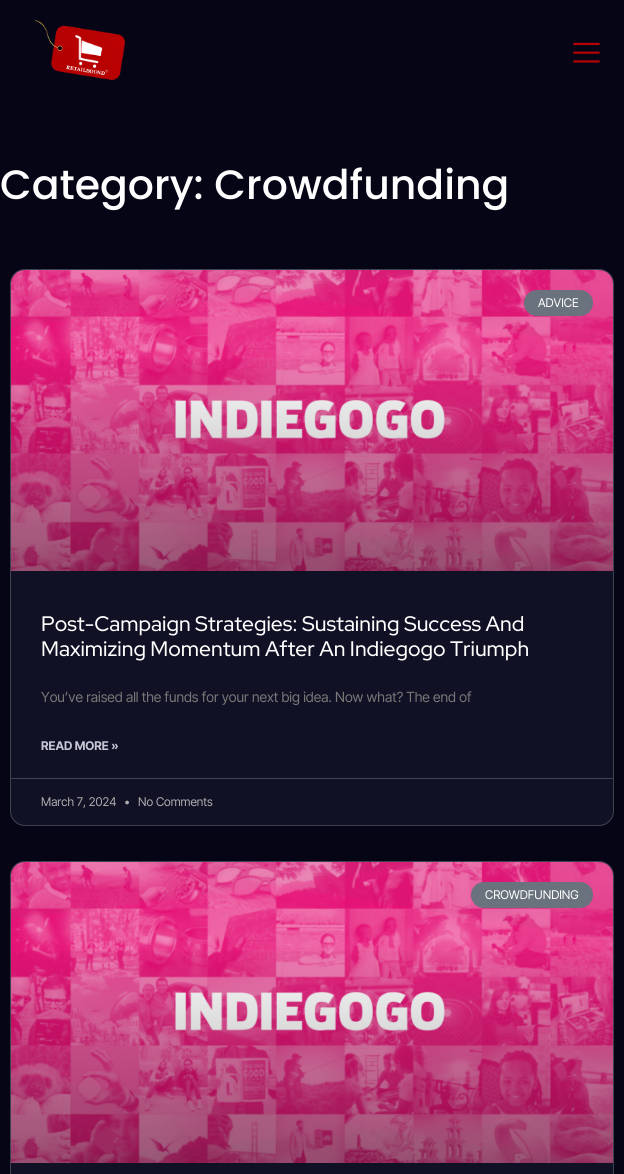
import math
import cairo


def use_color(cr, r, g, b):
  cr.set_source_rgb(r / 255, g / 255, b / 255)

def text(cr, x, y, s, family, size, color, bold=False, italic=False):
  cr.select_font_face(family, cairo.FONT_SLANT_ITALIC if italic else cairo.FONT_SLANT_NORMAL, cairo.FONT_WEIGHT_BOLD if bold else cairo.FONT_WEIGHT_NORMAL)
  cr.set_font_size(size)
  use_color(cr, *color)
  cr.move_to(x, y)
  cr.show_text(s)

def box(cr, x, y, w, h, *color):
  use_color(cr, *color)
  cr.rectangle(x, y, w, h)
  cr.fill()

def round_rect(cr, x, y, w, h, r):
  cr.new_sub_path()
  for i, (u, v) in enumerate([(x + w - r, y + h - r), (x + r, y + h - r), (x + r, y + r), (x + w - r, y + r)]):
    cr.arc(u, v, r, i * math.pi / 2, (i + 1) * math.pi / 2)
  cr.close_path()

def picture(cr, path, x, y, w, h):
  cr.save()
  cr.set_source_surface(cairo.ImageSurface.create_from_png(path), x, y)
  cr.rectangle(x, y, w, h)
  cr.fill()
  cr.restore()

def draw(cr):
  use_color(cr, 5, 5, 22)
  cr.paint()
  picture(cr, "img_01.png", 35, 20, 90, 60)
  picture(cr, "img_02.png", 573, 42, 27, 21)
  use_color(cr, 17, 17, 38)
  round_rect(cr, 10, 269, 604, 557, 15)
  cr.fill()
  round_rect(cr, 10.5, 269.5, 603, 556, 14.5)
  cr.set_source_rgba(0.318, 0.353, 0.388, 0.7)
  cr.set_line_width(1)
  cr.stroke()
  picture(cr, "img_03.png", 11, 270, 602, 301)
  gradient = cairo.LinearGradient(312, 571, 312, 270)
  gradient.add_color_stop_rgba(0, 0, 0, 0, 0.35)
  gradient.add_color_stop_rgba(0.75, 0, 0, 0, 0)
  cr.set_source(gradient)
  cr.rectangle(11, 359, 602, 212)
  cr.fill()
  use_color(cr, 105, 114, 125)
  round_rect(cr, 524, 290, 69, 26, 13)
  cr.fill()
  box(cr, 11, 778, 602, 1, 62, 68, 81)
  use_color(cr, 17, 17, 38)
  round_rect(cr, 10, 861, 604, 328, 15)
  cr.fill()
  round_rect(cr, 10.5, 861.5, 603, 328, 14.5)
  cr.set_source_rgba(0.318, 0.353, 0.388, 0.7)
  cr.stroke()
  picture(cr, "img_03.png", 11, 862, 602, 301)
  gradient = cairo.LinearGradient(312, 1163, 312, 862)
  gradient.add_color_stop_rgba(0, 0, 0, 0, 0.35)
  gradient.add_color_stop_rgba(0.75, 0, 0, 0, 0)
  cr.set_source(gradient)
  cr.rectangle(11, 951, 602, 212)
  cr.fill()
  use_color(cr, 105, 114, 125)
  round_rect(cr, 471, 882, 122, 26, 13)
  cr.fill()
  text(cr, 0, 199, "Category: Crowdfunding", "Poppins Medium", 41, (255, 255, 255))
  text(cr, 538, 307, "ADVICE", "Inter Tight", 12, (255, 255, 255))
  text(cr, 41, 631, "Post-Campaign Strategies: Sustaining Success And", "Red Hat Display Medium", 21, (255, 255, 255))
  text(cr, 41, 656, "Maximizing Momentum After An Indiegogo Triumph", "Red Hat Display Medium", 21, (255, 255, 255))
  text(cr, 41, 702, "You’ve raised all the funds for your next big idea. Now what? The end of", "Inter Tight", 14, (119, 119, 119))
  text(cr, 41, 750, "READ MORE »", "Inter Tight", 12, (198, 199, 213), bold=True)
  text(cr, 41, 806, "March 7, 2024", "Inter Tight", 12, (173, 173, 173))
  text(cr, 124, 806, "•", "Inter Tight", 12, (173, 173, 173))
  text(cr, 138, 806, "No Comments", "Inter Tight", 12, (173, 173, 173))
  text(cr, 485, 899, "CROWDFUNDING", "Inter Tight", 12, (255, 255, 255))


surface = cairo.ImageSurface(cairo.FORMAT_RGB24, 624, 1174)
cr = cairo.Context(surface)
options = cairo.FontOptions()
options.set_hint_metrics(cairo.HINT_METRICS_OFF)
options.set_hint_style(cairo.HINT_STYLE_NONE)
cr.set_font_options(options)
cr.set_miter_limit(4)
draw(cr)
surface.write_to_png("out.png")
